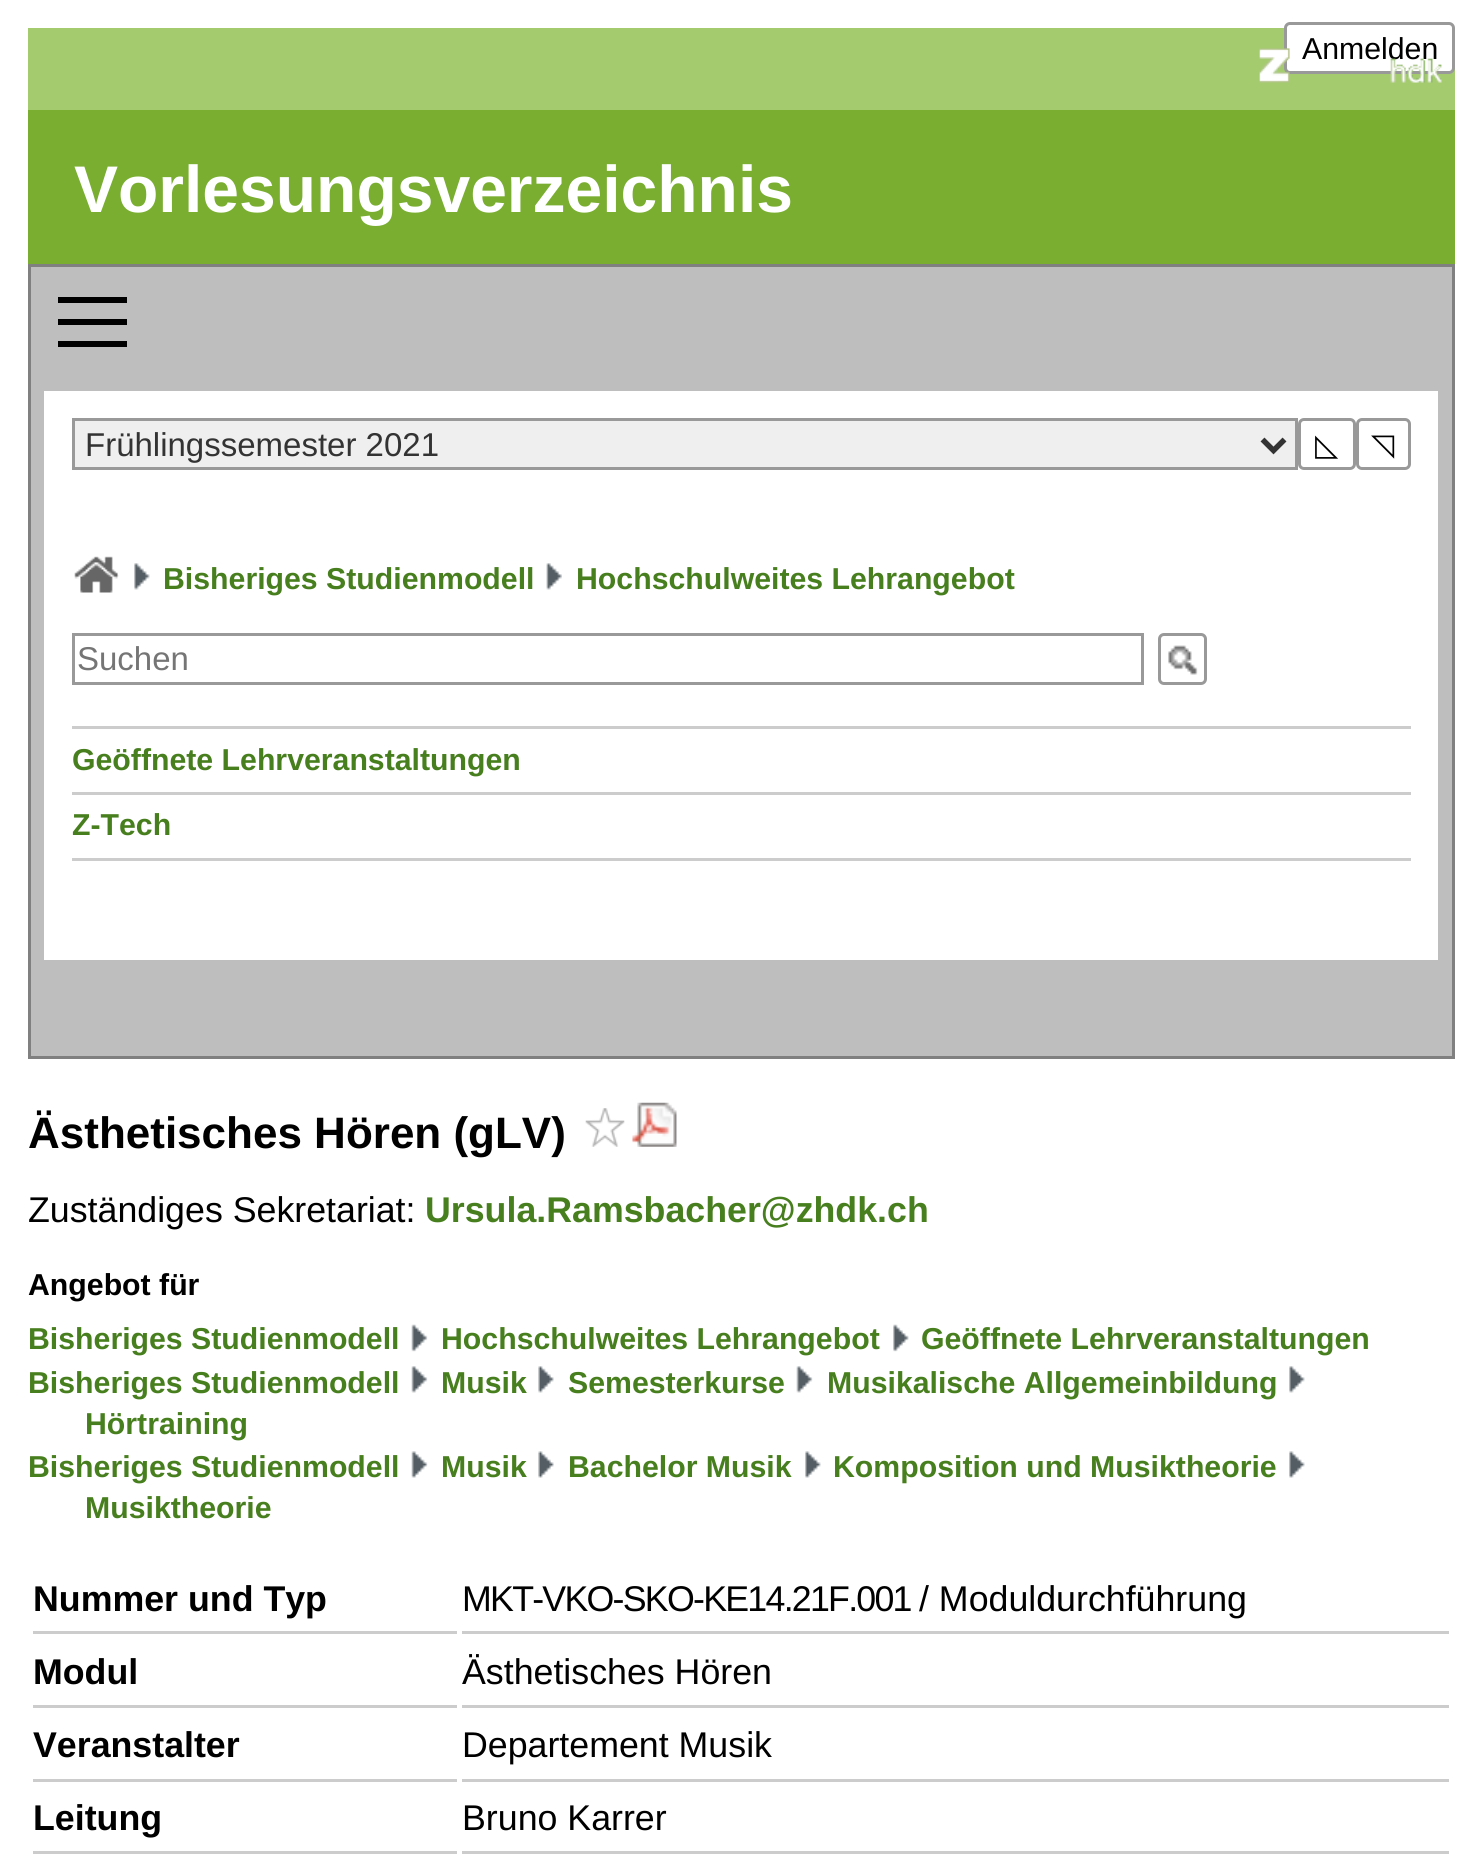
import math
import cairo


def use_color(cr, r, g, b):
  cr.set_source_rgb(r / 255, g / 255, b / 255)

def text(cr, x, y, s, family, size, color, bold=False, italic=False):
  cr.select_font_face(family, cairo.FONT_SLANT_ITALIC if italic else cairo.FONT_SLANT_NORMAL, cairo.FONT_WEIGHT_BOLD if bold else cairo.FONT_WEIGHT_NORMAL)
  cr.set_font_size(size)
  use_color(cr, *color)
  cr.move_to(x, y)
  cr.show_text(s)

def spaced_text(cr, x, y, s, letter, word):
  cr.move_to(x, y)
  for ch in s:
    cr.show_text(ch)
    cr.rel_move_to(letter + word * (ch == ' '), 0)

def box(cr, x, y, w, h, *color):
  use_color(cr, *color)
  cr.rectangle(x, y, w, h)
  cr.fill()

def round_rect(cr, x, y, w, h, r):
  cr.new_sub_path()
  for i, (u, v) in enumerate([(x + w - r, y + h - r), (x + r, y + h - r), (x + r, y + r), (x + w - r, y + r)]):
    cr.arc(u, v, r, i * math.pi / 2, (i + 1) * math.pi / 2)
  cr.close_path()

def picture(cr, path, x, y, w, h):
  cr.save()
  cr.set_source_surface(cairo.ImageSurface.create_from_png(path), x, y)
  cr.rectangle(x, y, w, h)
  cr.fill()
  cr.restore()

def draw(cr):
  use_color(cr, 255, 255, 255)
  cr.paint()
  box(cr, 28, 28, 1427, 82, 164, 204, 111)
  use_color(cr, 255, 255, 255)
  round_rect(cr, 1285.5, 23.5, 168, 49, 4.5)
  cr.fill_preserve()
  use_color(cr, 153, 153, 153)
  cr.set_line_width(3)
  cr.stroke()
  box(cr, 28, 110, 1427, 154, 121, 174, 49)
  box(cr, 31, 267, 1421, 789, 190, 190, 190)
  box(cr, 28, 264, 1427, 3, 128, 128, 128)
  box(cr, 1452, 264, 3, 795, 128, 128, 128)
  box(cr, 28, 264, 3, 113, 128, 128, 128)
  box(cr, 58, 297, 69, 6, 0, 0, 0)
  box(cr, 58, 319, 69, 6, 0, 0, 0)
  box(cr, 58, 341, 69, 6, 0, 0, 0)
  box(cr, 28, 1056, 1427, 3, 128, 128, 128)
  box(cr, 28, 377, 3, 682, 128, 128, 128)
  box(cr, 44, 391, 1394, 569, 255, 255, 255)
  use_color(cr, 239, 239, 239)
  cr.rectangle(73.5, 419.5, 1223, 49)
  cr.fill_preserve()
  use_color(cr, 153, 153, 153)
  cr.stroke()
  cr.new_path()
  cr.move_to(1262.5, 439.5)
  cr.line_to(1273.5, 450.5)
  cr.line_to(1284.5, 439.5)
  use_color(cr, 51, 51, 51)
  cr.set_line_width(5.5)
  cr.stroke()
  round_rect(cr, 1299.5, 419.5, 55, 49, 4.5)
  use_color(cr, 153, 153, 153)
  cr.set_line_width(3)
  cr.stroke()
  round_rect(cr, 1357.5, 419.5, 52, 49, 4.5)
  cr.stroke()
  picture(cr, "img_02.png", 74, 556, 45, 37)
  picture(cr, "img_03.png", 134, 563, 16, 27)
  picture(cr, "img_04.png", 546, 563, 16, 27)
  cr.rectangle(73.5, 634.5, 1069, 49)
  cr.stroke()
  picture(cr, "img_05.png", 1168, 645, 30, 30)
  round_rect(cr, 1159.5, 634.5, 46, 49, 4.5)
  cr.stroke()
  box(cr, 72, 726, 1339, 3, 204, 204, 204)
  box(cr, 72, 792, 1339, 3, 204, 204, 204)
  box(cr, 72, 858, 1339, 3, 204, 204, 204)
  picture(cr, "img_06.png", 585, 1108, 40, 39)
  picture(cr, "img_07.png", 632, 1102, 45, 45)
  picture(cr, "img_08.png", 411, 1324, 17, 28)
  picture(cr, "img_09.png", 893, 1324, 16, 28)
  picture(cr, "img_10.png", 411, 1366, 17, 27)
  picture(cr, "img_11.png", 538, 1366, 16, 27)
  picture(cr, "img_12.png", 796, 1366, 17, 27)
  picture(cr, "img_03.png", 1289, 1366, 16, 27)
  picture(cr, "img_13.png", 411, 1451, 17, 27)
  picture(cr, "img_14.png", 538, 1451, 16, 27)
  picture(cr, "img_15.png", 805, 1451, 16, 27)
  picture(cr, "img_15.png", 1289, 1451, 16, 27)
  box(cr, 33, 1631, 424, 3, 204, 204, 204)
  box(cr, 462, 1631, 987, 3, 204, 204, 204)
  box(cr, 33, 1705, 424, 3, 204, 204, 204)
  box(cr, 462, 1705, 987, 3, 204, 204, 204)
  box(cr, 33, 1779, 424, 3, 204, 204, 204)
  box(cr, 462, 1779, 987, 3, 204, 204, 204)
  box(cr, 33, 1851, 424, 3, 204, 204, 204)
  box(cr, 462, 1851, 987, 3, 204, 204, 204)
  text(cr, 1302, 59, "Anmelden", "Liberation Sans", 30.25, (0, 0, 0))
  picture(cr, "img_01.png", 1259, 48, 183, 35)
  text(cr, 74, 212, "Vorlesungsverzeichnis", "Liberation Sans", 66, (255, 255, 255), bold=True)
  text(cr, 85, 456, "Frühlingssemester 2021", "Liberation Sans", 33, (51, 51, 51))
  text(cr, 1315, 455, "◺", "DejaVu Sans", 30.25, (0, 0, 0))
  text(cr, 1371, 455, "◹", "DejaVu Sans", 30.25, (0, 0, 0))
  text(cr, 163, 589, "Bisheriges Studienmodell", "Liberation Sans", 30.25, (71, 126, 30), bold=True)
  text(cr, 576, 589, "Hochschulweites Lehrangebot", "Liberation Sans", 30.25, (71, 126, 30), bold=True)
  text(cr, 77, 670, "Suchen", "Liberation Sans", 33, (117, 117, 117))
  text(cr, 72, 770, "Geöffnete Lehrveranstaltungen", "Liberation Sans", 30.25, (71, 126, 30), bold=True)
  text(cr, 72, 835, "Z-Tech", "Liberation Sans", 30.25, (71, 126, 30), bold=True)
  text(cr, 28, 1148, "Ästhetisches Hören (gLV)", "Liberation Sans", 44, (0, 0, 0), bold=True)
  text(cr, 28, 1222, "Zuständiges Sekretariat:", "Liberation Sans", 35.75, (0, 0, 0))
  text(cr, 425, 1222, "Ursula.Ramsbacher@zhdk.ch", "Liberation Sans", 35.75, (71, 126, 30), bold=True)
  text(cr, 28, 1295, "Angebot für", "Liberation Sans", 30.25, (0, 0, 0), bold=True)
  text(cr, 28, 1349, "Bisheriges Studienmodell", "Liberation Sans", 30.25, (71, 126, 30), bold=True)
  text(cr, 441, 1349, "Hochschulweites Lehrangebot", "Liberation Sans", 30.25, (71, 126, 30), bold=True)
  text(cr, 921, 1349, "Geöffnete Lehrveranstaltungen", "Liberation Sans", 30.25, (71, 126, 30), bold=True)
  text(cr, 28, 1393, "Bisheriges Studienmodell", "Liberation Sans", 30.25, (71, 126, 30), bold=True)
  text(cr, 441, 1393, "Musik", "Liberation Sans", 30.25, (71, 126, 30), bold=True)
  text(cr, 568, 1393, "Semesterkurse", "Liberation Sans", 30.25, (71, 126, 30), bold=True)
  text(cr, 827, 1393, "Musikalische Allgemeinbildung", "Liberation Sans", 30.25, (71, 126, 30), bold=True)
  text(cr, 85, 1434, "Hörtraining", "Liberation Sans", 30.25, (71, 126, 30), bold=True)
  text(cr, 28, 1477, "Bisheriges Studienmodell", "Liberation Sans", 30.25, (71, 126, 30), bold=True)
  text(cr, 441, 1477, "Musik", "Liberation Sans", 30.25, (71, 126, 30), bold=True)
  text(cr, 568, 1477, "Bachelor Musik", "Liberation Sans", 30.25, (71, 126, 30), bold=True)
  text(cr, 833, 1477, "Komposition und Musiktheorie", "Liberation Sans", 30.25, (71, 126, 30), bold=True)
  text(cr, 85, 1518, "Musiktheorie", "Liberation Sans", 30.25, (71, 126, 30), bold=True)
  text(cr, 33, 1611, "Nummer und Typ", "Liberation Sans", 35.75, (0, 0, 0), bold=True)
  cr.select_font_face("Liberation Sans")
  spaced_text(cr, 462, 1611, "MKT-VKO-SKO-KE14.21F.001", -1.75, 0)
  text(cr, 919, 1611, "/ Moduldurchführung", "Liberation Sans", 35.75, (0, 0, 0))
  text(cr, 33, 1684, "Modul", "Liberation Sans", 35.75, (0, 0, 0), bold=True)
  text(cr, 462, 1684, "Ästhetisches Hören", "Liberation Sans", 35.75, (0, 0, 0))
  text(cr, 33, 1757, "Veranstalter", "Liberation Sans", 35.75, (0, 0, 0), bold=True)
  text(cr, 462, 1757, "Departement Musik", "Liberation Sans", 35.75, (0, 0, 0))
  text(cr, 33, 1830, "Leitung", "Liberation Sans", 35.75, (0, 0, 0), bold=True)
  text(cr, 462, 1830, "Bruno Karrer", "Liberation Sans", 35.75, (0, 0, 0))


surface = cairo.ImageSurface(cairo.FORMAT_RGB24, 1481, 1863)
cr = cairo.Context(surface)
options = cairo.FontOptions()
options.set_hint_metrics(cairo.HINT_METRICS_OFF)
options.set_hint_style(cairo.HINT_STYLE_NONE)
cr.set_font_options(options)
cr.set_miter_limit(4)
draw(cr)
surface.write_to_png("out.png")
